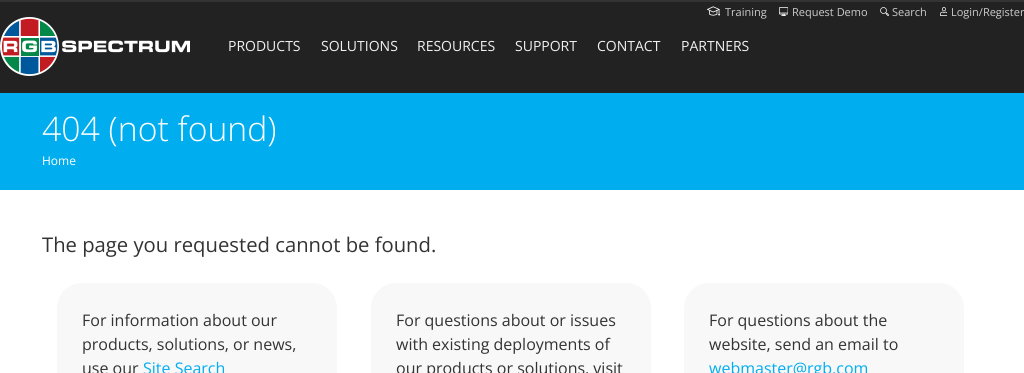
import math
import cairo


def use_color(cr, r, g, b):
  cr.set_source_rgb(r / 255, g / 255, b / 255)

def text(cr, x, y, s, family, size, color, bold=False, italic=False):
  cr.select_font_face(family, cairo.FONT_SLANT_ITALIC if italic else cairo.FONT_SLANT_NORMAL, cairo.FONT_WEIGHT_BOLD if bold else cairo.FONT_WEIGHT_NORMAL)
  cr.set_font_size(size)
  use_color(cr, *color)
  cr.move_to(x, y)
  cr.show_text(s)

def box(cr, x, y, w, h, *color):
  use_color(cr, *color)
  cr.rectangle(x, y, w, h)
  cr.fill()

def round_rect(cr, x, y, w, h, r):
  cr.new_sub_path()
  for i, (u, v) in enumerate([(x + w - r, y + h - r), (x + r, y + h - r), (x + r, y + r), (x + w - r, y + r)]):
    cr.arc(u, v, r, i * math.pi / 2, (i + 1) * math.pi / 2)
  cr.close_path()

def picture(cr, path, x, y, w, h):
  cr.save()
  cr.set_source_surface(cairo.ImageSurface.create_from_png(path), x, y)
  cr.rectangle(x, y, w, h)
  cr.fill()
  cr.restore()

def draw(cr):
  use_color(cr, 255, 255, 255)
  cr.paint()
  box(cr, 0, 2, 1024, 91, 34, 34, 34)
  box(cr, 0, 0, 1024, 2, 51, 51, 51)
  picture(cr, "img_01.png", 0, 17, 190, 59)
  picture(cr, "img_02.png", 707, 6, 13, 10)
  picture(cr, "img_03.png", 779, 7, 9, 9)
  picture(cr, "img_04.png", 880, 7, 9, 9)
  picture(cr, "img_05.png", 940, 7, 7, 9)
  box(cr, 0, 93, 1024, 97, 0, 174, 239)
  use_color(cr, 248, 248, 248)
  round_rect(cr, 57, 283, 280, 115, 25)
  cr.fill()
  round_rect(cr, 371, 283, 280, 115, 25)
  cr.fill()
  round_rect(cr, 684, 283, 280, 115, 25)
  cr.fill()
  text(cr, 725, 16, "Training", "Open Sans", 11, (204, 204, 204))
  text(cr, 792, 16, "Request Demo", "Open Sans", 11, (204, 204, 204))
  text(cr, 892, 16, "Search", "Open Sans", 11, (204, 204, 204))
  text(cr, 951, 16, "Login/Register", "Open Sans", 11, (204, 204, 204))
  text(cr, 228, 51, "PRODUCTS", "Open Sans", 14, (240, 240, 240))
  text(cr, 321, 51, "SOLUTIONS", "Open Sans", 14, (240, 240, 240))
  text(cr, 417, 51, "RESOURCES", "Open Sans", 14, (240, 240, 240))
  text(cr, 515, 51, "SUPPORT", "Open Sans", 14, (240, 240, 240))
  text(cr, 597, 51, "CONTACT", "Open Sans", 14, (240, 240, 240))
  text(cr, 681, 51, "PARTNERS", "Open Sans", 14, (240, 240, 240))
  text(cr, 42, 141, "404 (not found)", "Open Sans Light", 33.75, (255, 255, 255))
  text(cr, 42, 165, "Home", "Open Sans", 12, (255, 255, 255))
  text(cr, 42, 252, "The page you requested cannot be found.", "Open Sans", 20.25, (51, 51, 51))
  text(cr, 82, 326, "For information about our", "Open Sans", 16, (51, 51, 51))
  text(cr, 82, 350, "products, solutions, or news,", "Open Sans", 16, (51, 51, 51))
  text(cr, 82, 374, "use our", "Open Sans", 16, (51, 51, 51))
  text(cr, 143, 374, "Site Search", "Open Sans", 16, (0, 174, 239))
  text(cr, 396, 326, "For questions about or issues", "Open Sans", 16, (51, 51, 51))
  text(cr, 396, 350, "with existing deployments of", "Open Sans", 16, (51, 51, 51))
  text(cr, 396, 374, "our products or solutions, visit", "Open Sans", 16, (51, 51, 51))
  text(cr, 709, 326, "For questions about the", "Open Sans", 16, (51, 51, 51))
  text(cr, 709, 350, "website, send an email to", "Open Sans", 16, (51, 51, 51))
  text(cr, 709, 374, "webmaster@rgb.com", "Open Sans", 16, (0, 174, 239))


surface = cairo.ImageSurface(cairo.FORMAT_RGB24, 1024, 373)
cr = cairo.Context(surface)
options = cairo.FontOptions()
options.set_hint_metrics(cairo.HINT_METRICS_OFF)
options.set_hint_style(cairo.HINT_STYLE_NONE)
cr.set_font_options(options)
cr.set_miter_limit(4)
draw(cr)
surface.write_to_png("out.png")
